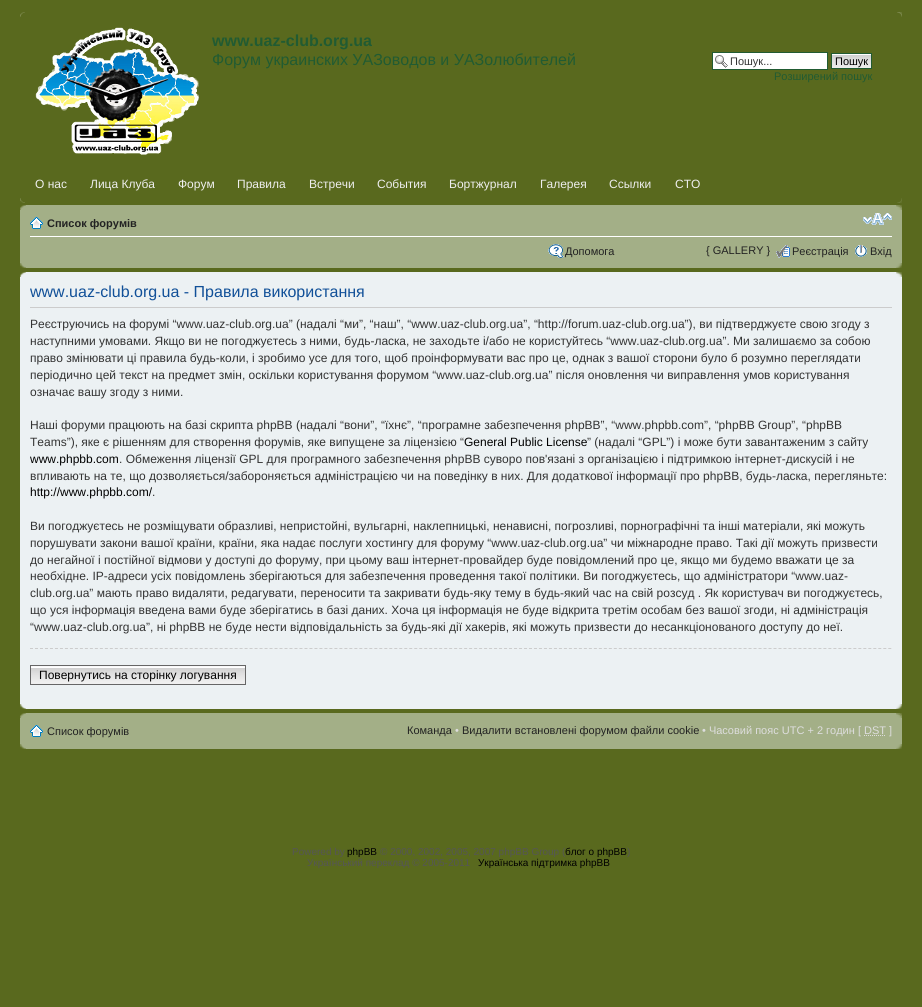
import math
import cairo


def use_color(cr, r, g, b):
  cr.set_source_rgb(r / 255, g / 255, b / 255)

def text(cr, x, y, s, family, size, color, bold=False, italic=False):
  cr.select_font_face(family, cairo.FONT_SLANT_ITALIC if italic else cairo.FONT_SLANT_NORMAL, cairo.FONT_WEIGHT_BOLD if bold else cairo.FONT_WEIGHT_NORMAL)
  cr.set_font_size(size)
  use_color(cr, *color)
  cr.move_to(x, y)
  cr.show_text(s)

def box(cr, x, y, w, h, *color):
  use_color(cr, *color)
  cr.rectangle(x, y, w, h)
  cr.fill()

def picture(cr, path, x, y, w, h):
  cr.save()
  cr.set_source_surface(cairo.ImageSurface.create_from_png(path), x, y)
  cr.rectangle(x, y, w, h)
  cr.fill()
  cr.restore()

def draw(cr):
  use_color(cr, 89, 105, 30)
  cr.paint()
  picture(cr, "img_01.png", 20, 12, 5, 5)
  picture(cr, "img_02.png", 897, 12, 5, 5)
  picture(cr, "img_03.png", 35, 27, 164, 128)
  box(cr, 713, 53, 114, 16, 255, 255, 255)
  picture(cr, "img_04.png", 715, 55, 13, 13)
  cr.rectangle(712.5, 52.5, 115, 17)
  use_color(cr, 33, 91, 50)
  cr.set_line_width(1)
  cr.stroke()
  picture(cr, "img_05.png", 832, 54, 39, 14)
  cr.rectangle(831.5, 53.5, 40, 15)
  cr.stroke()
  picture(cr, "img_06.png", 20, 198, 5, 5)
  picture(cr, "img_07.png", 897, 198, 5, 5)
  box(cr, 20, 205, 882, 63, 163, 175, 135)
  picture(cr, "img_08.png", 20, 205, 6, 5)
  picture(cr, "img_09.png", 896, 205, 6, 5)
  box(cr, 30, 236, 862, 1, 255, 255, 255)
  picture(cr, "img_10.png", 30, 217, 13, 12)
  picture(cr, "img_11.png", 863, 213, 29, 12)
  picture(cr, "img_12.png", 548, 244, 16, 14)
  picture(cr, "img_13.png", 776, 245, 14, 13)
  picture(cr, "img_14.png", 855, 245, 12, 12)
  picture(cr, "img_15.png", 20, 263, 6, 5)
  picture(cr, "img_16.png", 896, 263, 6, 5)
  box(cr, 20, 272, 882, 437, 236, 241, 243)
  picture(cr, "img_17.png", 20, 272, 6, 5)
  picture(cr, "img_18.png", 896, 272, 6, 5)
  box(cr, 30, 307, 862, 1, 204, 204, 204)
  cr.new_path()
  cr.move_to(30, 648.5)
  cr.line_to(892, 648.5)
  cr.set_dash([3, 1.99])
  cr.stroke()
  picture(cr, "img_19.png", 31, 667, 214, 17)
  box(cr, 31, 666, 214, 1, 250, 250, 250)
  cr.rectangle(30.5, 665.5, 215, 19)
  use_color(cr, 102, 102, 102)
  cr.set_dash([])
  cr.stroke()
  picture(cr, "img_20.png", 20, 704, 6, 5)
  picture(cr, "img_21.png", 896, 704, 6, 5)
  box(cr, 20, 713, 882, 36, 163, 175, 135)
  picture(cr, "img_08.png", 20, 713, 6, 5)
  picture(cr, "img_09.png", 896, 713, 6, 5)
  picture(cr, "img_10.png", 30, 725, 13, 12)
  cr.new_path()
  cr.move_to(864, 735.5)
  cr.line_to(886, 735.5)
  use_color(cr, 221, 221, 221)
  cr.set_dash([1, 1])
  cr.stroke()
  picture(cr, "img_15.png", 20, 744, 6, 5)
  picture(cr, "img_16.png", 896, 744, 6, 5)
  text(cr, 212, 46, "www.uaz-club.org.ua", "Liberation Sans", 16, (33, 91, 50), bold=True)
  text(cr, 212, 65, "Форум украинских УАЗоводов и УАЗолюбителей", "Liberation Sans", 16, (33, 91, 50))
  text(cr, 730, 65, "Пошук...", "Liberation Sans", 11, (51, 51, 51))
  text(cr, 835, 65, "Пошук", "Liberation Sans", 11, (0, 0, 0))
  text(cr, 774, 80, "Розширений пошук", "Liberation Sans", 11, (33, 91, 50))
  text(cr, 35, 188, "О нас", "Liberation Sans", 12, (238, 238, 238))
  text(cr, 90, 188, "Лица Клуба", "Liberation Sans", 12, (238, 238, 238))
  text(cr, 178, 188, "Форум", "Liberation Sans", 12, (238, 238, 238))
  text(cr, 237, 188, "Правила", "Liberation Sans", 12, (238, 238, 238))
  text(cr, 309, 188, "Встречи", "Liberation Sans", 12, (238, 238, 238))
  text(cr, 377, 188, "События", "Liberation Sans", 12, (238, 238, 238))
  text(cr, 449, 188, "Бортжурнал", "Liberation Sans", 12, (238, 238, 238))
  text(cr, 540, 188, "Галерея", "Liberation Sans", 12, (238, 238, 238))
  text(cr, 609, 188, "Ссылки", "Liberation Sans", 12, (238, 238, 238))
  text(cr, 675, 188, "СТО", "Liberation Sans", 12, (238, 238, 238))
  text(cr, 47, 227, "Список форумів", "Liberation Sans", 11, (34, 34, 34), bold=True)
  text(cr, 565, 255, "Допомога", "Liberation Sans", 11, (34, 34, 34))
  text(cr, 706, 254, "{ GALLERY }", "Liberation Sans", 11, (34, 34, 34))
  text(cr, 792, 255, "Реєстрація", "Liberation Sans", 11, (34, 34, 34))
  text(cr, 870, 255, "Вхід", "Liberation Sans", 11, (34, 34, 34))
  text(cr, 30, 297, "www.uaz-club.org.ua - Правила використання", "Liberation Sans", 16, (17, 80, 152))
  text(cr, 30, 328, "Реєструючись на форумі “www.uaz-club.org.ua” (надалі “ми”, “наш”, “www.uaz-club.org.ua”, “http://forum.uaz-club.org.ua”), ви підтверджуєте свою згоду з", "Liberation Sans", 12, (51, 51, 51))
  text(cr, 30, 345, "наступними умовами. Якщо ви не погоджуєтесь з ними, будь-ласка, не заходьте і/або не користуйтесь “www.uaz-club.org.ua”. Ми залишаємо за собою", "Liberation Sans", 12, (51, 51, 51))
  text(cr, 30, 362, "право змінювати ці правила будь-коли, і зробимо усе для того, щоб проінформувати вас про це, однак з вашої сторони було б розумно переглядати", "Liberation Sans", 12, (51, 51, 51))
  text(cr, 30, 379, "періодично цей текст на предмет змін, оскільки користування форумом “www.uaz-club.org.ua” після оновлення чи виправлення умов користування", "Liberation Sans", 12, (51, 51, 51))
  text(cr, 30, 396, "означає вашу згоду з ними.", "Liberation Sans", 12, (51, 51, 51))
  text(cr, 30, 429, "Наші форуми працюють на базі скрипта phpBB (надалі “вони”, “їхнє”, “програмне забезпечення phpBB”, “www.phpbb.com”, “phpBB Group”, “phpBB", "Liberation Sans", 12, (51, 51, 51))
  text(cr, 30, 446, "Teams”), яке є рішенням для створення форумів, яке випущене за ліцензією “", "Liberation Sans", 12, (51, 51, 51))
  text(cr, 464, 446, "General Public License", "Liberation Sans", 12, (0, 0, 0))
  text(cr, 587, 446, "” (надалі “GPL”) і може бути завантаженим з сайту", "Liberation Sans", 12, (51, 51, 51))
  text(cr, 30, 463, "www.phpbb.com", "Liberation Sans", 12, (0, 0, 0))
  text(cr, 119, 463, ". Обмеження ліцензії GPL для програмного забезпечення phpBB суворо пов'язані з організацією і підтримкою інтернет-дискусій і не", "Liberation Sans", 12, (51, 51, 51))
  text(cr, 30, 480, "впливають на те, що дозволяється/забороняється адміністрацією чи на поведінку в них. Для додаткової інформації про phpBB, будь-ласка, перегляньте:", "Liberation Sans", 12, (51, 51, 51))
  text(cr, 30, 496, "http://www.phpbb.com/", "Liberation Sans", 12, (0, 0, 0))
  text(cr, 152, 496, ".", "Liberation Sans", 12, (51, 51, 51))
  text(cr, 30, 530, "Ви погоджуєтесь не розміщувати образливі, непристойні, вульгарні, наклепницькі, ненависні, погрозливі, порнографічні та інші матеріали, які можуть", "Liberation Sans", 12, (51, 51, 51))
  text(cr, 30, 547, "порушувати закони вашої країни, країни, яка надає послуги хостингу для форуму “www.uaz-club.org.ua” чи міжнародне право. Такі дії можуть призвести", "Liberation Sans", 12, (51, 51, 51))
  text(cr, 30, 564, "до негайної і постійної відмови у доступі до форуму, при цьому ваш інтернет-провайдер буде повідомлений про це, якщо ми будемо вважати це за", "Liberation Sans", 12, (51, 51, 51))
  text(cr, 30, 580, "необхідне. IP-адреси усіх повідомлень зберігаються для забезпечення проведення такої політики. Ви погоджуєтесь, що адміністратори “www.uaz-", "Liberation Sans", 12, (51, 51, 51))
  text(cr, 30, 597, "club.org.ua” мають право видаляти, редагувати, переносити та закривати будь-яку тему в будь-який час на свій розсуд . Як користувач ви погоджуєтесь,", "Liberation Sans", 12, (51, 51, 51))
  text(cr, 30, 614, "що уся інформація введена вами буде зберігатись в базі даних. Хоча ця інформація не буде відкрита третім особам без вашої згоди, ні адміністрація", "Liberation Sans", 12, (51, 51, 51))
  text(cr, 30, 631, "“www.uaz-club.org.ua”, ні phpBB не буде нести відповідальність за будь-які дії хакерів, які можуть призвести до несанкціонованого доступу до неї.", "Liberation Sans", 12, (51, 51, 51))
  text(cr, 39, 679, "Повернутись на сторінку логування", "Liberation Sans", 12, (0, 0, 0))
  text(cr, 47, 735, "Список форумів", "Liberation Sans", 11, (34, 34, 34))
  text(cr, 407, 734, "Команда", "Liberation Sans", 11, (34, 34, 34))
  text(cr, 455, 734, "•", "Liberation Sans", 11, (221, 221, 221))
  text(cr, 462, 734, "Видалити встановлені форумом файли cookie", "Liberation Sans", 11, (34, 34, 34))
  text(cr, 702, 734, "• Часовий пояс UTC + 2 годин [ DST ]", "Liberation Sans", 11, (221, 221, 221))
  text(cr, 292, 855, "Powered by", "Liberation Sans", 10, (85, 85, 85))
  text(cr, 347, 855, "phpBB", "Liberation Sans", 10, (0, 0, 0))
  text(cr, 380, 855, "© 2000, 2002, 2005, 2007 phpBB Group (", "Liberation Sans", 10, (85, 85, 85))
  text(cr, 565, 855, "блог о phpBB", "Liberation Sans", 10, (0, 0, 0))
  text(cr, 627, 855, ")", "Liberation Sans", 10, (85, 85, 85))
  text(cr, 307, 866, "Український переклад © 2005-2011", "Liberation Sans", 10, (85, 85, 85))
  text(cr, 478, 866, "Українська підтримка phpBB", "Liberation Sans", 10, (0, 0, 0))


surface = cairo.ImageSurface(cairo.FORMAT_RGB24, 922, 1007)
cr = cairo.Context(surface)
options = cairo.FontOptions()
options.set_hint_metrics(cairo.HINT_METRICS_OFF)
options.set_hint_style(cairo.HINT_STYLE_NONE)
cr.set_font_options(options)
cr.set_miter_limit(4)
draw(cr)
surface.write_to_png("out.png")
